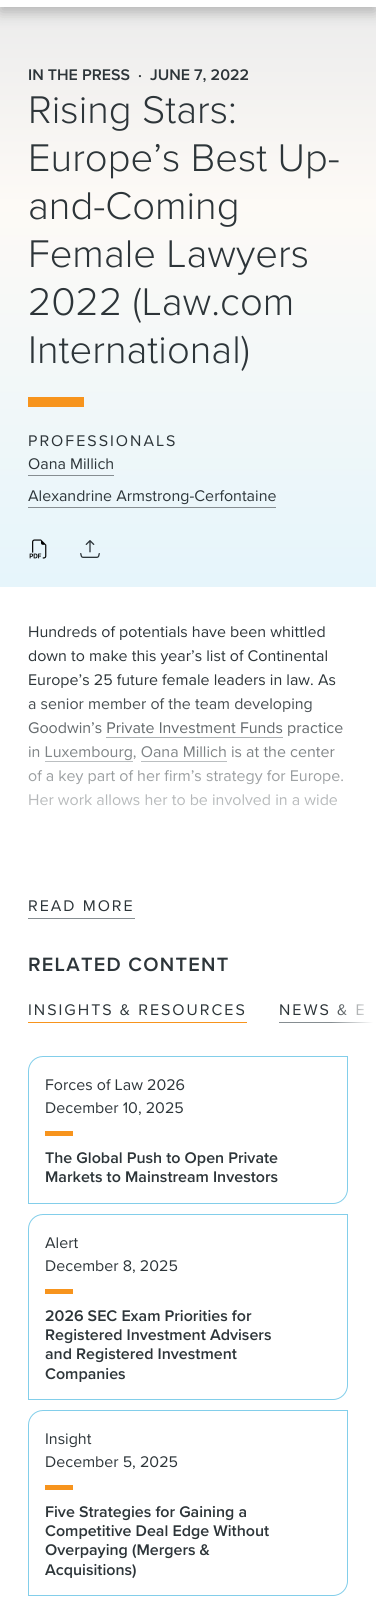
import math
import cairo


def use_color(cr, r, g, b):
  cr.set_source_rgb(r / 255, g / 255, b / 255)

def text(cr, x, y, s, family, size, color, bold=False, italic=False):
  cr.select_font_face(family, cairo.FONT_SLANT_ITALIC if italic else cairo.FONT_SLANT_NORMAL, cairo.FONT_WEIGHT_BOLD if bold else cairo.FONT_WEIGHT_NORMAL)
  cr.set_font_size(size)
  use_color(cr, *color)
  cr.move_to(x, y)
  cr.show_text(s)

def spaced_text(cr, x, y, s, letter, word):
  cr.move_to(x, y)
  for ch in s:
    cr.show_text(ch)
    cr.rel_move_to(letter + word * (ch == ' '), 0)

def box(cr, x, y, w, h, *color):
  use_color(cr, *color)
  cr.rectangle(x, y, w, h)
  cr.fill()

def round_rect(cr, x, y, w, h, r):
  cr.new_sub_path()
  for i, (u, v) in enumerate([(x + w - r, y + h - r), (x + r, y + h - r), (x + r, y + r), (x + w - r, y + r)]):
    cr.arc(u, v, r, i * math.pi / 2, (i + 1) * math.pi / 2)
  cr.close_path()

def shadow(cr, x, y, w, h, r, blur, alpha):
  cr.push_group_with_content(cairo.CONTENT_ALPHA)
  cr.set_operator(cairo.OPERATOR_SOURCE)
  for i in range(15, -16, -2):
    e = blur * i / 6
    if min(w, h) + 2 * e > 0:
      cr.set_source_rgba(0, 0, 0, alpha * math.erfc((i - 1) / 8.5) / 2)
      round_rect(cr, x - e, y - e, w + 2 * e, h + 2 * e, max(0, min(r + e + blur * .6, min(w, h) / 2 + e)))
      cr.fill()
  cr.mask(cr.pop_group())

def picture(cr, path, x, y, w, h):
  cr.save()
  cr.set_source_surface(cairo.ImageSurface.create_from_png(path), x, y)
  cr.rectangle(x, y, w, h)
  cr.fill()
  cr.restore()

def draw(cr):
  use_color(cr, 255, 255, 255)
  cr.paint()
  gradient = cairo.LinearGradient(188, 7, 188, 587)
  gradient.add_color_stop_rgba(0, 0.925, 0.925, 0.925, 1)
  gradient.add_color_stop_rgba(0.34, 0.992, 0.98, 0.965, 1)
  gradient.add_color_stop_rgba(0.99, 0.902, 0.961, 0.984, 1)
  cr.set_source(gradient)
  cr.rectangle(0, 7, 376, 580)
  cr.fill()
  use_color(cr, 0, 0, 0)
  shadow(cr, 0, -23, 376, 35, 0, 7.5, 0.25)
  box(cr, 0, 0, 376, 7, 255, 255, 255)
  box(cr, 28, 397, 56, 10, 247, 148, 29)
  box(cr, 28, 475, 86, 1, 134, 141, 145)
  box(cr, 28, 507, 248, 1, 134, 141, 145)
  picture(cr, "img_01.png", 29, 539, 18, 20)
  picture(cr, "img_02.png", 80, 540, 20, 18)
  box(cr, 106, 737, 177, 1, 134, 141, 145)
  box(cr, 45, 761, 88, 1, 134, 141, 145)
  box(cr, 141, 761, 86, 1, 134, 141, 145)
  box(cr, 28, 918, 107, 1, 134, 141, 145)
  box(cr, 28, 1022, 219, 1, 247, 148, 29)
  box(cr, 279, 1022, 97, 1, 134, 141, 145)
  cr.new_path()
  cr.move_to(43, 1056.5)
  cr.line_to(347.5, 1056.5)
  cr.line_to(347.5, 1189)
  cr.curve_to(347.5, 1197, 341, 1203.5, 333, 1203.5)
  cr.line_to(28.5, 1203.5)
  cr.line_to(28.5, 1071)
  cr.curve_to(28.5, 1063, 35, 1056.5, 43, 1056.5)
  cr.close_path()
  use_color(cr, 130, 206, 234)
  cr.set_line_width(1)
  cr.stroke()
  box(cr, 45, 1131, 28, 5, 247, 148, 29)
  cr.new_path()
  cr.move_to(43, 1214.5)
  cr.line_to(347.5, 1214.5)
  cr.line_to(347.5, 1385)
  cr.curve_to(347.5, 1393, 341, 1399.5, 333, 1399.5)
  cr.line_to(28.5, 1399.5)
  cr.line_to(28.5, 1229)
  cr.curve_to(28.5, 1221, 35, 1214.5, 43, 1214.5)
  cr.close_path()
  use_color(cr, 130, 206, 234)
  cr.stroke()
  box(cr, 45, 1289, 28, 5, 247, 148, 29)
  cr.new_path()
  cr.move_to(43, 1410.5)
  cr.line_to(347.5, 1410.5)
  cr.line_to(347.5, 1581)
  cr.curve_to(347.5, 1589, 341, 1595.5, 333, 1595.5)
  cr.line_to(28.5, 1595.5)
  cr.line_to(28.5, 1425)
  cr.curve_to(28.5, 1417, 35, 1410.5, 43, 1410.5)
  cr.close_path()
  use_color(cr, 130, 206, 234)
  cr.stroke()
  box(cr, 45, 1485, 28, 5, 247, 148, 29)
  text(cr, 28, 80, "IN THE PRESS", "Proxima Nova SemiBold", 16, (45, 53, 57))
  text(cr, 138, 80, "·", "Proxima Nova SemiBold", 16, (45, 53, 57))
  text(cr, 150, 80, "JUNE 7, 2022", "Proxima Nova SemiBold", 16, (45, 53, 57))
  text(cr, 28, 123, "Rising Stars:", "Proxima Nova Light", 40, (45, 53, 57))
  text(cr, 28, 171, "Europe’s Best Up-", "Proxima Nova Light", 40, (45, 53, 57))
  text(cr, 28, 219, "and-Coming", "Proxima Nova Light", 40, (45, 53, 57))
  text(cr, 28, 267, "Female Lawyers", "Proxima Nova Light", 40, (45, 53, 57))
  text(cr, 28, 315, "2022 (Law.com", "Proxima Nova Light", 40, (45, 53, 57))
  text(cr, 28, 363, "International)", "Proxima Nova Light", 40, (45, 53, 57))
  cr.select_font_face("Proxima Nova")
  cr.set_font_size(16)
  spaced_text(cr, 28, 446, "PROFESSIONALS", 2, 0)
  text(cr, 28, 469, "Oana Millich", "Proxima Nova", 16, (45, 53, 57))
  text(cr, 28, 501, "Alexandrine Armstrong-Cerfontaine", "Proxima Nova", 16, (45, 53, 57))
  text(cr, 28, 637, "Hundreds of potentials have been whittled", "Proxima Nova", 16, (45, 53, 57))
  text(cr, 28, 661, "down to make this year’s list of Continental", "Proxima Nova", 16, (45, 53, 57))
  text(cr, 28, 685, "Europe’s 25 future female leaders in law. As", "Proxima Nova", 16, (45, 53, 57))
  text(cr, 28, 709, "a senior member of the team developing", "Proxima Nova", 16, (45, 53, 57))
  text(cr, 28, 733, "Goodwin’s Private Investment Funds practice", "Proxima Nova", 16, (45, 53, 57))
  text(cr, 28, 757, "in Luxembourg, Oana Millich is at the center", "Proxima Nova", 16, (45, 53, 57))
  text(cr, 28, 781, "of a key part of her firm’s strategy for Europe.", "Proxima Nova", 16, (45, 53, 57))
  text(cr, 28, 805, "Her work allows her to be involved in a wide", "Proxima Nova", 16, (45, 53, 57))
  gradient = cairo.LinearGradient(188, 682, 188, 870)
  gradient.add_color_stop_rgba(0, 1, 1, 1, 0)
  gradient.add_color_stop_rgba(0.96, 1, 1, 1, 1)
  cr.set_source(gradient)
  cr.rectangle(28, 686, 315, 120)
  cr.fill()
  use_color(cr, 45, 53, 57)
  spaced_text(cr, 28, 911, "READ MORE", 2, 0)
  cr.select_font_face("Proxima Nova SemiBold")
  cr.set_font_size(20)
  spaced_text(cr, 28, 971, "RELATED CONTENT", 1.25, 0)
  cr.select_font_face("Proxima Nova")
  cr.set_font_size(16)
  spaced_text(cr, 28, 1015, "INSIGHTS & RESOURCES", 2, 0)
  spaced_text(cr, 279, 1015, "NEWS & E", 2, 0)
  gradient = cairo.LinearGradient(376, 1016, 331, 1016)
  gradient.add_color_stop_rgba(0.06, 1, 1, 1, 1)
  gradient.add_color_stop_rgba(1, 1, 1, 1, 0)
  cr.set_source(gradient)
  cr.rectangle(332, 1004, 44, 19)
  cr.fill()
  text(cr, 45, 1090, "Forces of Law 2026", "Proxima Nova", 16, (45, 53, 57))
  text(cr, 45, 1113, "December 10, 2025", "Proxima Nova", 16, (45, 53, 57))
  text(cr, 45, 1163, "The Global Push to Open Private", "Proxima Nova SemiBold", 16, (45, 53, 57))
  text(cr, 45, 1182, "Markets to Mainstream Investors", "Proxima Nova SemiBold", 16, (45, 53, 57))
  text(cr, 45, 1248, "Alert", "Proxima Nova", 16, (45, 53, 57))
  text(cr, 45, 1271, "December 8, 2025", "Proxima Nova", 16, (45, 53, 57))
  text(cr, 45, 1321, "2026 SEC Exam Priorities for", "Proxima Nova SemiBold", 16, (45, 53, 57))
  text(cr, 45, 1340, "Registered Investment Advisers", "Proxima Nova SemiBold", 16, (45, 53, 57))
  text(cr, 45, 1359, "and Registered Investment", "Proxima Nova SemiBold", 16, (45, 53, 57))
  text(cr, 45, 1379, "Companies", "Proxima Nova SemiBold", 16, (45, 53, 57))
  text(cr, 45, 1444, "Insight", "Proxima Nova", 16, (45, 53, 57))
  text(cr, 45, 1467, "December 5, 2025", "Proxima Nova", 16, (45, 53, 57))
  text(cr, 45, 1517, "Five Strategies for Gaining a", "Proxima Nova SemiBold", 16, (45, 53, 57))
  text(cr, 45, 1536, "Competitive Deal Edge Without", "Proxima Nova SemiBold", 16, (45, 53, 57))
  text(cr, 45, 1555, "Overpaying (Mergers &", "Proxima Nova SemiBold", 16, (45, 53, 57))
  text(cr, 45, 1575, "Acquisitions)", "Proxima Nova SemiBold", 16, (45, 53, 57))


surface = cairo.ImageSurface(cairo.FORMAT_RGB24, 376, 1602)
cr = cairo.Context(surface)
options = cairo.FontOptions()
options.set_hint_metrics(cairo.HINT_METRICS_OFF)
options.set_hint_style(cairo.HINT_STYLE_NONE)
cr.set_font_options(options)
cr.set_miter_limit(4)
draw(cr)
surface.write_to_png("out.png")
